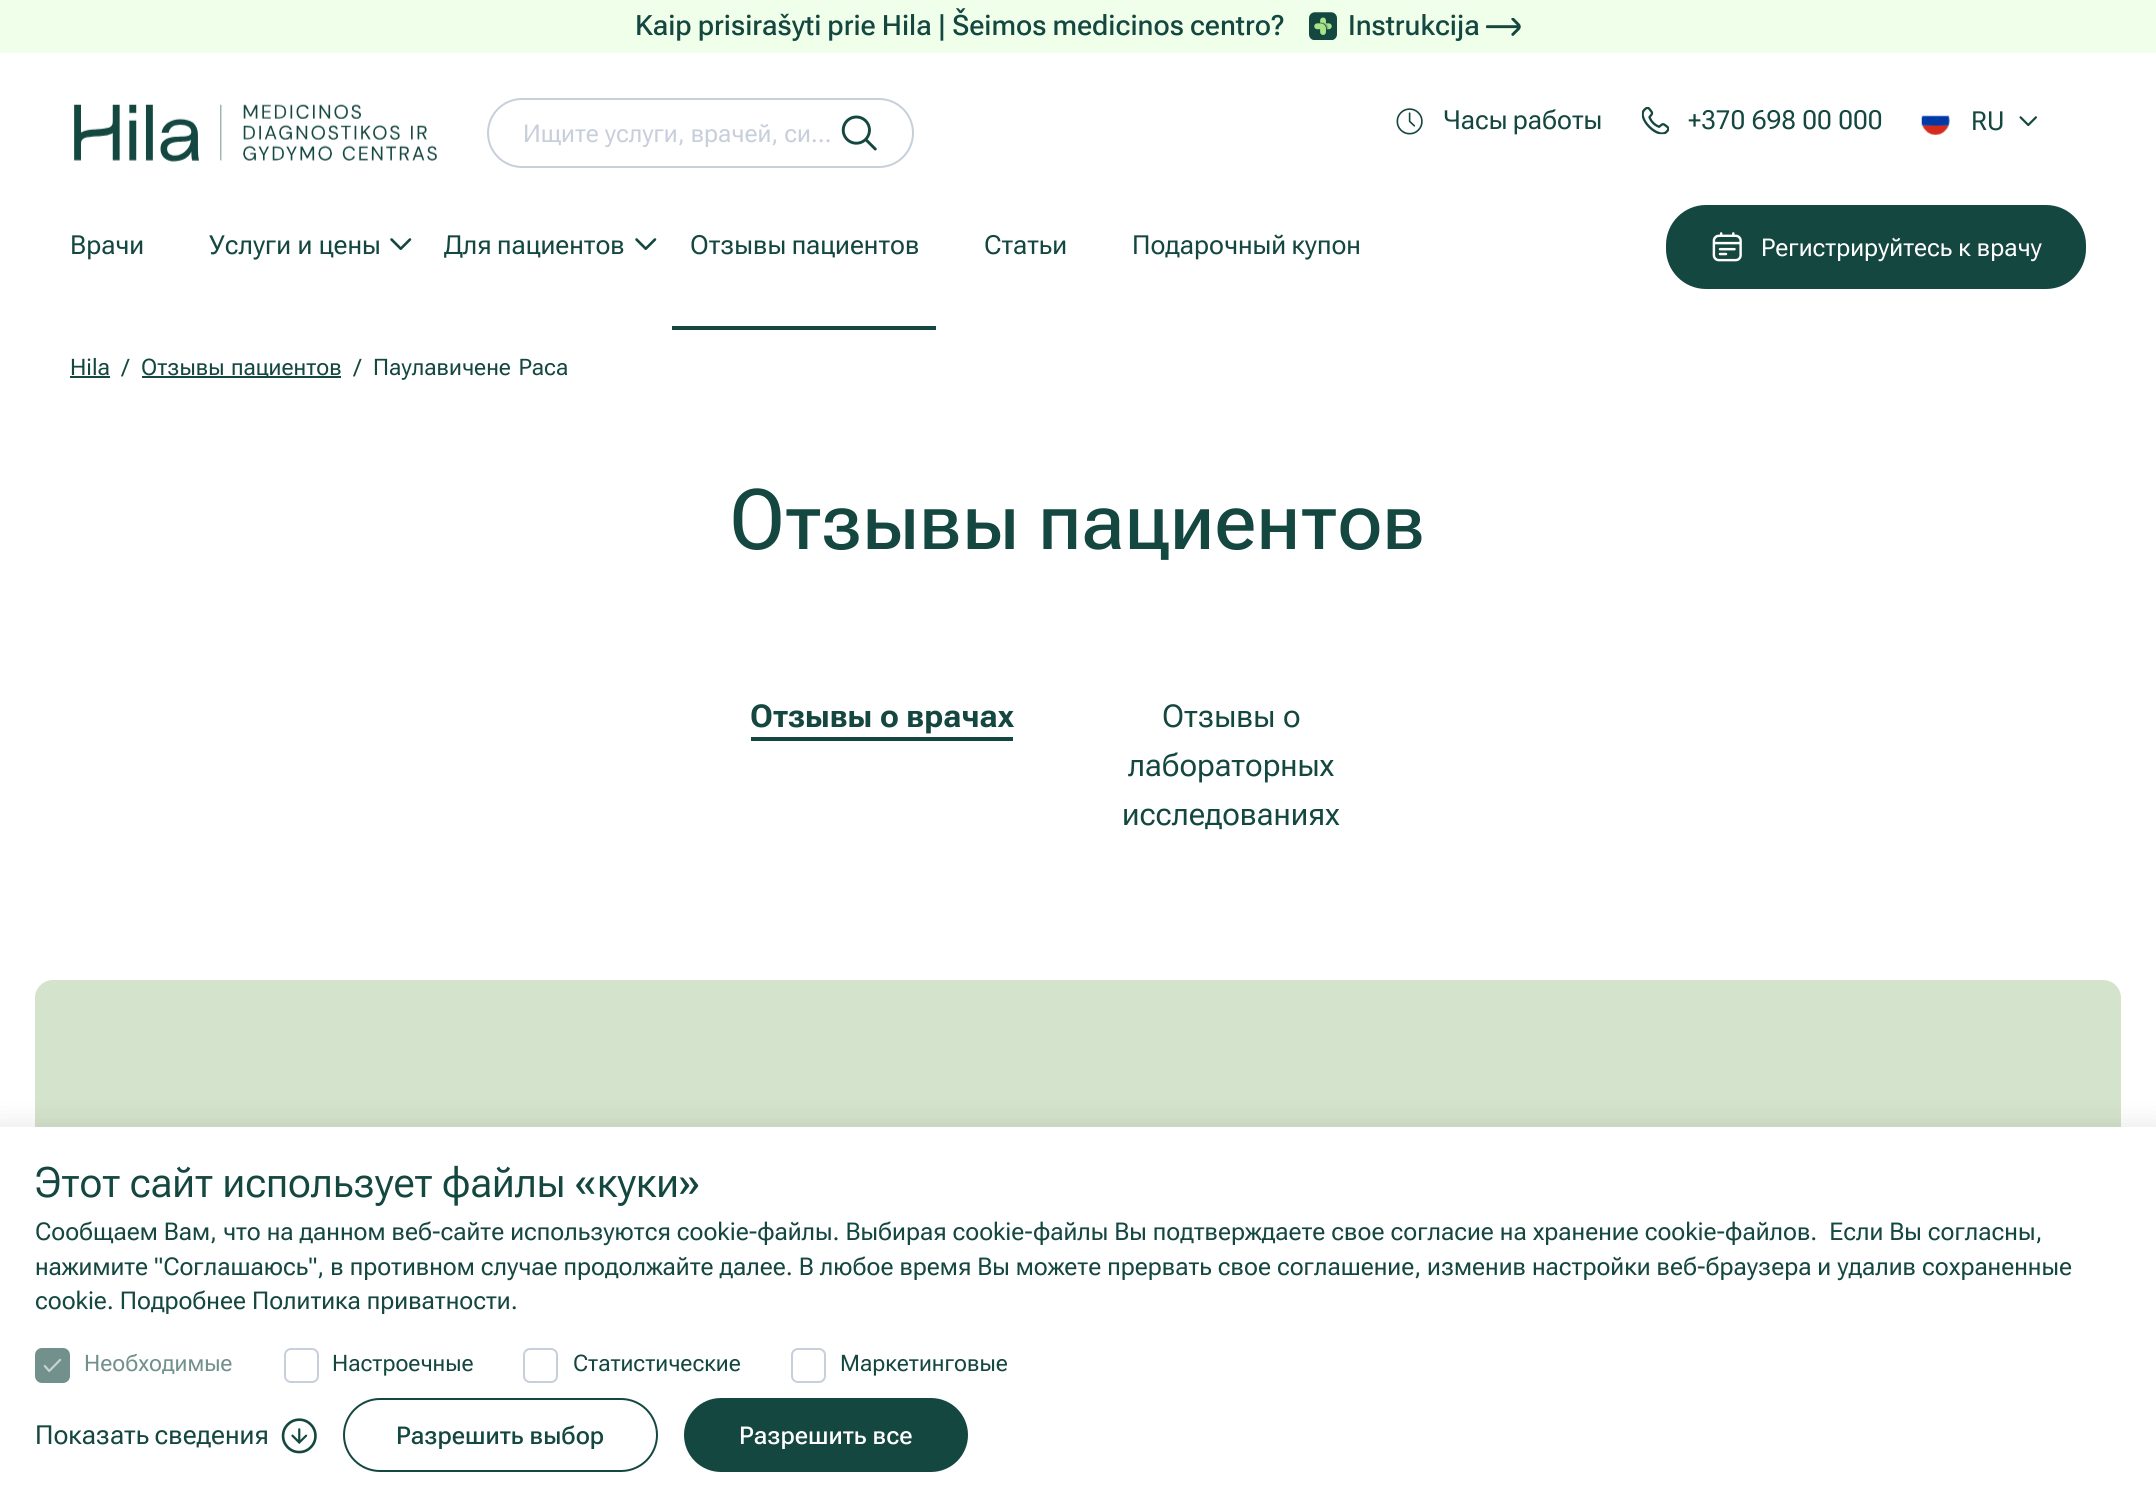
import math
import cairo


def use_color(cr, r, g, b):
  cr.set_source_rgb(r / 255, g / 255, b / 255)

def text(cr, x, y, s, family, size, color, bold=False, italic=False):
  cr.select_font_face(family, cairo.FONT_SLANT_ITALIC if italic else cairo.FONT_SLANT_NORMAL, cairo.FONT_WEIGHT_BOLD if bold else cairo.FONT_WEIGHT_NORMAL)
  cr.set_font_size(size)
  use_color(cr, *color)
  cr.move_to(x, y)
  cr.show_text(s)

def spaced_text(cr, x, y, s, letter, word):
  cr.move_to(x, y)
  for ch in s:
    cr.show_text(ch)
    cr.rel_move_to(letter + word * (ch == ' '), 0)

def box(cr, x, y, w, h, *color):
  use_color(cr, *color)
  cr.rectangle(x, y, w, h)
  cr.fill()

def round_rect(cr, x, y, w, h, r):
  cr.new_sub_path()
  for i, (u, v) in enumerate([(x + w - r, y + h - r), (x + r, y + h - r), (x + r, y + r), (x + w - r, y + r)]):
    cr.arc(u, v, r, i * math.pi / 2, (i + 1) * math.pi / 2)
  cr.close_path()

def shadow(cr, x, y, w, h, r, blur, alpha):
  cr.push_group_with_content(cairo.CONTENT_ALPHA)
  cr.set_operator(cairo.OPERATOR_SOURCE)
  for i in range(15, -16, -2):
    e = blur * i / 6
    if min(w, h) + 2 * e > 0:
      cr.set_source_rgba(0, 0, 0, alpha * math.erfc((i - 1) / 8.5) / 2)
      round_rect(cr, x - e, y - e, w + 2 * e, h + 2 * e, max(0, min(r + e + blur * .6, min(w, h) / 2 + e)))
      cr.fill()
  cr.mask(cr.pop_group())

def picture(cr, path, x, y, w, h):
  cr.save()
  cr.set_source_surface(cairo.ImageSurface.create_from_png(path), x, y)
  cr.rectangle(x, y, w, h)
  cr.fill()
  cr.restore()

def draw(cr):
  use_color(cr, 255, 255, 255)
  cr.paint()
  box(cr, 0, 0, 2156, 53, 240, 255, 234)
  picture(cr, "img_01.png", 1309, 12, 28, 28)
  picture(cr, "img_02.png", 1486, 18, 35, 18)
  picture(cr, "img_03.png", 74, 104, 363, 58)
  round_rect(cr, 488, 99, 425, 68, 34)
  use_color(cr, 199, 207, 219)
  cr.stroke()
  picture(cr, "img_04.png", 841, 115, 36, 36)
  picture(cr, "img_05.png", 1396, 108, 27, 27)
  picture(cr, "img_06.png", 1641, 107, 29, 28)
  picture(cr, "img_07.png", 1921, 115, 29, 20)
  picture(cr, "img_08.png", 2019, 116, 18, 11)
  picture(cr, "img_09.png", 390, 238, 22, 12)
  picture(cr, "img_10.png", 635, 238, 22, 12)
  box(cr, 672, 326, 264, 4, 20, 71, 64)
  round_rect(cr, 1666, 205, 420, 84, 40)
  cr.fill()
  picture(cr, "img_11.png", 1712, 232, 30, 30)
  box(cr, 70, 376, 40, 2, 20, 71, 64)
  box(cr, 142, 376, 199, 2, 20, 71, 64)
  box(cr, 751, 737, 262, 4, 20, 71, 64)
  use_color(cr, 212, 227, 204)
  round_rect(cr, 35, 980, 2086, 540, 18)
  cr.fill()
  use_color(cr, 0, 0, 0)
  shadow(cr, -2, 1125, 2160, 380, 0, 13, 0.1)
  box(cr, 0, 1127, 2156, 375, 255, 255, 255)
  use_color(cr, 114, 145, 140)
  round_rect(cr, 36, 1349, 33, 33, 6)
  cr.fill_preserve()
  cr.stroke()
  picture(cr, "img_12.png", 43, 1358, 19, 14)
  round_rect(cr, 285, 1349, 33, 33, 6)
  use_color(cr, 199, 207, 219)
  cr.stroke()
  round_rect(cr, 524, 1349, 33, 33, 6)
  cr.stroke()
  round_rect(cr, 792, 1349, 33, 33, 6)
  cr.stroke()
  picture(cr, "img_13.png", 281, 1418, 36, 36)
  round_rect(cr, 344, 1399, 313, 72, 36)
  use_color(cr, 20, 71, 64)
  cr.stroke()
  round_rect(cr, 684, 1398, 284, 74, 37)
  cr.fill()
  cr.select_font_face("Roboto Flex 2 Medium")
  cr.set_font_size(28)
  spaced_text(cr, 635, 35, "Kaip prisirašyti prie Hila | Šeimos medicinos centro?", 0, -0.75)
  text(cr, 1348, 35, "Instrukcija", "Roboto Flex 2 Medium", 28, (20, 71, 64))
  cr.save()
  cr.rectangle(523, 119, 319, 28)
  cr.clip()
  text(cr, 523, 142, "Ищите услуги, врачей, си…", "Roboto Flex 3", 24.5, (199, 207, 219))
  cr.restore()
  cr.select_font_face("Roboto Flex 3")
  cr.set_font_size(26.25)
  spaced_text(cr, 1443, 129, "Часы работы", 0, -1)
  text(cr, 1688, 129, "+370 698 00 000", "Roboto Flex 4", 26.25, (20, 71, 64))
  text(cr, 1971, 130, "RU", "Roboto Flex 4", 26.25, (20, 71, 64))
  text(cr, 70, 254, "Врачи", "Roboto Flex 3", 26.25, (20, 71, 64))
  text(cr, 209, 254, "Услуги и цены", "Roboto Flex 3", 26.25, (20, 71, 64))
  spaced_text(cr, 444, 254, "Для пациентов", 0, -1)
  spaced_text(cr, 690, 254, "Отзывы пациентов", 0, -1)
  text(cr, 984, 254, "Статьи", "Roboto Flex 3", 26.25, (20, 71, 64))
  spaced_text(cr, 1132, 254, "Подарочный купон", 0, -1)
  text(cr, 1761, 256, "Регистрируйтесь к врачу", "Roboto Flex 3", 24.5, (255, 255, 255))
  text(cr, 70, 375, "Hila", "Roboto Flex 2", 22.75, (20, 71, 64))
  text(cr, 122, 375, "/", "Roboto Flex 2", 22.75, (20, 71, 64))
  cr.select_font_face("Roboto Flex 3")
  spaced_text(cr, 141, 375, "Отзывы пациентов", 0, 1)
  text(cr, 354, 375, "/", "Roboto Flex 2", 22.75, (20, 71, 64))
  cr.select_font_face("Roboto Flex 3")
  spaced_text(cr, 373, 375, "Паулавичене Раса", 0, 2)
  cr.select_font_face("Roboto Flex Medium")
  cr.set_font_size(84)
  spaced_text(cr, 730, 549, "Отзывы пациентов", 1, 0)
  text(cr, 750, 727, "Отзывы о врачах", "Roboto Flex", 31.5, (20, 71, 64), bold=True)
  text(cr, 1162, 727, "Отзывы о", "Roboto Flex", 31.5, (20, 71, 64))
  text(cr, 1128, 776, "лабораторных", "Roboto Flex", 31.5, (20, 71, 64))
  text(cr, 1122, 825, "исследованиях", "Roboto Flex", 31.5, (20, 71, 64))
  text(cr, 35, 1197, "Этот сайт использует файлы", "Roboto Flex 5", 42, (20, 71, 64))
  text(cr, 574, 1197, "«", "Roboto Flex 3", 42, (20, 71, 64))
  text(cr, 597, 1197, "куки", "Roboto Flex 5", 42, (20, 71, 64))
  text(cr, 678, 1197, "»", "Roboto Flex 3", 42, (20, 71, 64))
  text(cr, 35, 1240, "Сообщаем Вам, что на данном веб-сайте используются cookie-файлы. Выбирая cookie-файлы Вы подтверждаете свое согласие на хранение cookie-файлов.  Если Вы согласны,", "Roboto Flex 3", 24.5, (20, 71, 64))
  text(cr, 35, 1275, "нажимите \"Cоглашаюсь\", в противном случае продолжайте далее. В любое время Вы можете прервать свое соглашение, изменив настройки веб-браузера и удалив сохраненные", "Roboto Flex 3", 24.5, (20, 71, 64))
  text(cr, 35, 1309, "cookie. Подробнее Политика приватности.", "Roboto Flex 3", 24.5, (20, 71, 64))
  text(cr, 84, 1371, "Необходимые", "Roboto Flex 3", 22.75, (114, 145, 140))
  text(cr, 332, 1371, "Настроечные", "Roboto Flex 3", 22.75, (20, 71, 64))
  text(cr, 573, 1371, "Статистические", "Roboto Flex 3", 22.75, (20, 71, 64))
  text(cr, 840, 1371, "Маркетинговые", "Roboto Flex 3", 22.75, (20, 71, 64))
  cr.set_font_size(26.25)
  spaced_text(cr, 35, 1444, "Показать сведения", 0, -1)
  text(cr, 396, 1444, "Разрешить выбор", "Roboto Flex 2 Medium", 24.5, (20, 71, 64))
  text(cr, 739, 1444, "Разрешить все", "Roboto Flex 2 Medium", 24.5, (255, 255, 255))


surface = cairo.ImageSurface(cairo.FORMAT_RGB24, 2156, 1502)
cr = cairo.Context(surface)
options = cairo.FontOptions()
options.set_hint_metrics(cairo.HINT_METRICS_OFF)
options.set_hint_style(cairo.HINT_STYLE_NONE)
cr.set_font_options(options)
cr.set_miter_limit(4)
draw(cr)
surface.write_to_png("out.png")
